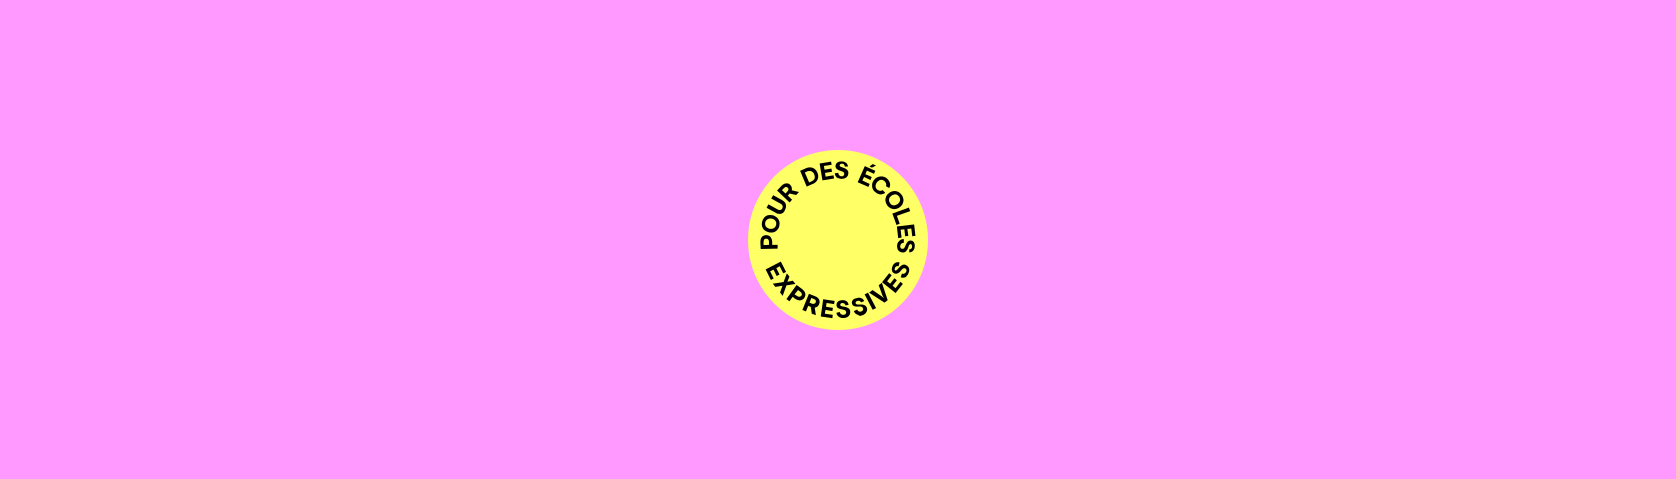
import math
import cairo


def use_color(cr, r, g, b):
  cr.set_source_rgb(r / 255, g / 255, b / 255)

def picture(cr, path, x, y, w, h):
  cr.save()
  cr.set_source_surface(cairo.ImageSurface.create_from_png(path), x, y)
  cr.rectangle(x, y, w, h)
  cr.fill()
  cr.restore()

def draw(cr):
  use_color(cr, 255, 153, 255)
  cr.paint()
  use_color(cr, 255, 255, 102)
  cr.arc(838, 240, 90, 0, 2 * math.pi)
  cr.fill()
  picture(cr, "img_01.png", 760, 161, 156, 158)


surface = cairo.ImageSurface(cairo.FORMAT_RGB24, 1676, 479)
cr = cairo.Context(surface)
options = cairo.FontOptions()
options.set_hint_metrics(cairo.HINT_METRICS_OFF)
options.set_hint_style(cairo.HINT_STYLE_NONE)
cr.set_font_options(options)
cr.set_miter_limit(4)
draw(cr)
surface.write_to_png("out.png")
